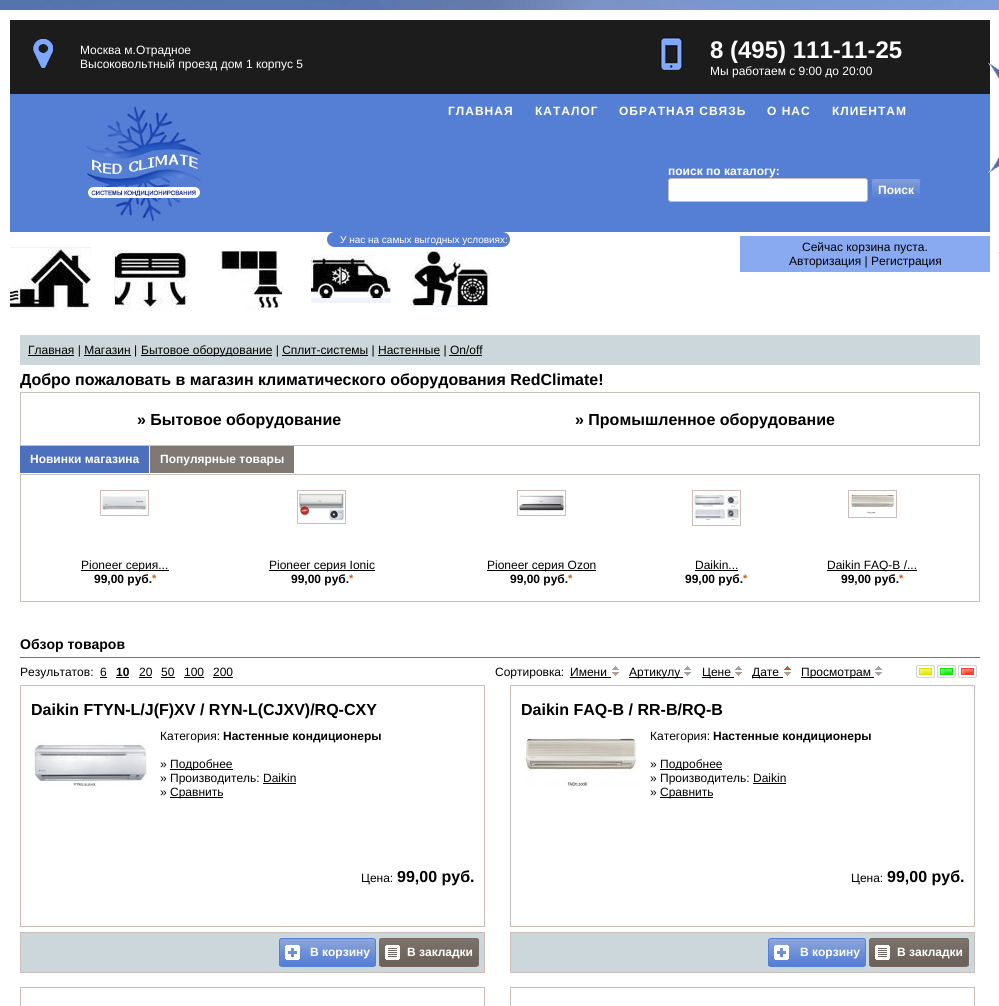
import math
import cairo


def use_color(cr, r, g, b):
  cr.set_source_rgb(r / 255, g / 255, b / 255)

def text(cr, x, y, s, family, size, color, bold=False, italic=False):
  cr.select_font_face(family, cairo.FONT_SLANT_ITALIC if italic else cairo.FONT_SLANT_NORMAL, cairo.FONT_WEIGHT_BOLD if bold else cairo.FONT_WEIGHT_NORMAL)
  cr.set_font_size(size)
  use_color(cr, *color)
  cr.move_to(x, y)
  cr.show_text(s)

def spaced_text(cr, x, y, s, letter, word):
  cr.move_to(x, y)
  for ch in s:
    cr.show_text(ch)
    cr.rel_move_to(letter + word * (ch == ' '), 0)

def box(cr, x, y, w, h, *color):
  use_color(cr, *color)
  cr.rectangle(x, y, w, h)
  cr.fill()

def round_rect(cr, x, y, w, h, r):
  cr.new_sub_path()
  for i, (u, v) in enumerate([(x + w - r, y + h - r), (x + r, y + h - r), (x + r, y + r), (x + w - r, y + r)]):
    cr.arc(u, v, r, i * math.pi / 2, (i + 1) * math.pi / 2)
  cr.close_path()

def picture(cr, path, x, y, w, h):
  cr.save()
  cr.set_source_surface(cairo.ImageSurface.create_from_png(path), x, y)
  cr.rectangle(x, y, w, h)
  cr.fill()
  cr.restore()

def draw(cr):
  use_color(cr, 255, 255, 255)
  cr.paint()
  picture(cr, "img_01.png", 0, 0, 999, 10)
  box(cr, 10, 20, 980, 74, 28, 28, 28)
  picture(cr, "img_02.png", 26, 36, 32, 32)
  picture(cr, "img_03.png", 656, 36, 32, 40)
  box(cr, 10, 94, 980, 138, 85, 127, 213)
  picture(cr, "img_04.png", 82, 106, 120, 116)
  use_color(cr, 255, 255, 255)
  round_rect(cr, 668.5, 178.5, 199, 23, 2.5)
  cr.fill_preserve()
  use_color(cr, 204, 189, 183)
  cr.set_line_width(1)
  cr.stroke()
  picture(cr, "img_05.png", 871, 178, 50, 20)
  round_rect(cr, 871.5, 178.5, 49, 23, 2.5)
  use_color(cr, 85, 126, 213)
  cr.stroke()
  picture(cr, "img_06.png", 327, 232, 183, 15)
  picture(cr, "img_07.png", 10, 247, 81, 64)
  picture(cr, "img_08.png", 112, 249, 78, 62)
  picture(cr, "img_09.png", 218, 251, 65, 60)
  picture(cr, "img_10.png", 311, 255, 80, 48)
  picture(cr, "img_11.png", 410, 251, 81, 58)
  box(cr, 740, 236, 250, 36, 137, 169, 241)
  box(cr, 20, 335, 960, 30, 204, 215, 219)
  box(cr, 28, 355, 46, 1, 0, 0, 0)
  box(cr, 141, 355, 131, 1, 0, 0, 0)
  box(cr, 84, 355, 47, 1, 0, 0, 0)
  box(cr, 282, 355, 86, 1, 0, 0, 0)
  box(cr, 378, 355, 62, 1, 0, 0, 0)
  box(cr, 449, 355, 33, 1, 0, 0, 0)
  cr.rectangle(20.5, 392.5, 959, 53)
  use_color(cr, 199, 195, 184)
  cr.stroke()
  box(cr, 20, 446, 129, 27, 76, 112, 188)
  box(cr, 150, 446, 144, 27, 128, 120, 114)
  cr.rectangle(20.5, 474.5, 959, 127)
  use_color(cr, 199, 195, 184)
  cr.stroke()
  cr.rectangle(100.5, 490.5, 48, 25)
  use_color(cr, 204, 189, 183)
  cr.stroke()
  picture(cr, "img_12.png", 102, 495, 45, 19)
  box(cr, 81, 570, 88, 1, 0, 0, 0)
  cr.rectangle(297.5, 490.5, 48, 33)
  use_color(cr, 204, 189, 183)
  cr.stroke()
  picture(cr, "img_13.png", 299, 493, 45, 28)
  box(cr, 269, 570, 106, 1, 0, 0, 0)
  cr.rectangle(517.5, 490.5, 48, 25)
  use_color(cr, 204, 189, 183)
  cr.stroke()
  picture(cr, "img_14.png", 519, 492, 45, 22)
  box(cr, 487, 570, 109, 1, 0, 0, 0)
  cr.rectangle(692.5, 490.5, 48, 35)
  use_color(cr, 204, 189, 183)
  cr.stroke()
  picture(cr, "img_15.png", 694, 492, 45, 32)
  box(cr, 695, 570, 43, 1, 0, 0, 0)
  cr.rectangle(848.5, 490.5, 48, 27)
  use_color(cr, 204, 189, 183)
  cr.stroke()
  picture(cr, "img_16.png", 850, 492, 45, 23)
  box(cr, 827, 570, 90, 1, 0, 0, 0)
  box(cr, 20, 657, 960, 1, 210, 90, 11)
  box(cr, 100, 677, 7, 1, 0, 0, 0)
  box(cr, 116, 677, 13, 1, 0, 0, 0)
  box(cr, 139, 677, 13, 1, 0, 0, 0)
  box(cr, 161, 677, 14, 1, 0, 0, 0)
  box(cr, 184, 677, 20, 1, 0, 0, 0)
  box(cr, 213, 677, 20, 1, 0, 0, 0)
  box(cr, 570, 677, 41, 1, 0, 0, 0)
  picture(cr, "img_17.png", 612, 666, 7, 10)
  box(cr, 629, 677, 54, 1, 0, 0, 0)
  picture(cr, "img_17.png", 684, 666, 7, 10)
  box(cr, 702, 677, 32, 1, 0, 0, 0)
  picture(cr, "img_17.png", 735, 666, 7, 10)
  box(cr, 752, 677, 31, 1, 0, 0, 0)
  picture(cr, "img_18.png", 784, 666, 7, 10)
  box(cr, 801, 677, 73, 1, 0, 0, 0)
  picture(cr, "img_17.png", 875, 666, 7, 10)
  picture(cr, "img_19.png", 916, 665, 61, 13)
  cr.rectangle(20.5, 685.5, 464, 241)
  use_color(cr, 204, 189, 183)
  cr.stroke()
  picture(cr, "img_20.png", 33, 740, 114, 47)
  box(cr, 170, 769, 63, 1, 0, 0, 0)
  box(cr, 263, 783, 33, 1, 0, 0, 0)
  box(cr, 170, 797, 53, 1, 0, 0, 0)
  use_color(cr, 204, 215, 219)
  cr.rectangle(20.5, 932.5, 464, 40)
  cr.fill_preserve()
  use_color(cr, 204, 189, 183)
  cr.stroke()
  picture(cr, "img_21.png", 279, 938, 97, 28)
  round_rect(cr, 279.5, 938.5, 96, 28, 2.5)
  use_color(cr, 85, 126, 213)
  cr.stroke()
  picture(cr, "img_22.png", 285, 945, 15, 15)
  picture(cr, "img_23.png", 379, 938, 100, 28)
  round_rect(cr, 379.5, 938.5, 99, 28, 2.5)
  use_color(cr, 116, 108, 101)
  cr.stroke()
  picture(cr, "img_24.png", 385, 945, 15, 15)
  cr.rectangle(510.5, 685.5, 464, 241)
  use_color(cr, 204, 189, 183)
  cr.stroke()
  picture(cr, "img_25.png", 523, 737, 115, 50)
  box(cr, 660, 769, 62, 1, 0, 0, 0)
  box(cr, 753, 783, 33, 1, 0, 0, 0)
  box(cr, 660, 797, 53, 1, 0, 0, 0)
  use_color(cr, 204, 215, 219)
  cr.rectangle(510.5, 932.5, 464, 40)
  cr.fill_preserve()
  use_color(cr, 204, 189, 183)
  cr.stroke()
  picture(cr, "img_26.png", 768, 938, 98, 28)
  round_rect(cr, 768.5, 938.5, 97, 28, 2.5)
  use_color(cr, 85, 126, 213)
  cr.stroke()
  picture(cr, "img_22.png", 774, 945, 15, 15)
  picture(cr, "img_23.png", 869, 938, 100, 28)
  round_rect(cr, 869.5, 938.5, 99, 28, 2.5)
  use_color(cr, 116, 108, 101)
  cr.stroke()
  picture(cr, "img_24.png", 875, 945, 15, 15)
  cr.rectangle(20.5, 987.5, 464, 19)
  use_color(cr, 204, 189, 183)
  cr.stroke()
  cr.rectangle(510.5, 987.5, 464, 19)
  cr.stroke()
  picture(cr, "img_27.png", 987, 62, 12, 112)
  picture(cr, "img_28.png", 997, 252, 2, 2)
  text(cr, 80, 54, "Москва м.Отрадное", "Liberation Sans", 12, (255, 255, 255))
  text(cr, 80, 68, "Высоковольтный проезд дом 1 корпус 5", "Liberation Sans", 12, (255, 255, 255))
  text(cr, 710, 58, "8 (495) 111-11-25", "Liberation Sans", 24, (255, 255, 255), bold=True)
  text(cr, 710, 75, "Мы работаем с 9:00 до 20:00", "Liberation Sans", 12, (255, 255, 255))
  cr.select_font_face("Liberation Sans", cairo.FONT_SLANT_NORMAL, cairo.FONT_WEIGHT_BOLD)
  spaced_text(cr, 448, 115, "ГЛАВНАЯ", 1, 0)
  spaced_text(cr, 535, 115, "КАТАЛОГ", 1, 0)
  spaced_text(cr, 619, 115, "ОБРАТНАЯ СВЯЗЬ", 1, 0)
  spaced_text(cr, 767, 115, "О НАС", 1, 0)
  spaced_text(cr, 832, 115, "КЛИЕНТАМ", 1, 0)
  text(cr, 668, 175, "поиск по каталогу:", "Liberation Sans", 12, (255, 255, 255), bold=True)
  text(cr, 878, 194, "Поиск", "Liberation Sans", 12, (255, 255, 255), bold=True)
  text(cr, 340, 243, "У нас на самых выгодных условиях:", "Liberation Sans", 10, (255, 255, 255))
  text(cr, 802, 251, "Сейчас корзина пуста.", "Liberation Sans", 12, (0, 0, 0))
  text(cr, 789, 265, "Авторизация | Регистрация", "Liberation Sans", 12, (0, 0, 0))
  text(cr, 28, 354, "Главная | Магазин |", "Liberation Sans", 12, (0, 0, 0))
  text(cr, 141, 354, "Бытовое оборудование | Сплит-системы | Настенные | On/off", "Liberation Sans", 12, (0, 0, 0))
  text(cr, 20, 385, "Добро пожаловать в магазин климатического оборудования RedClimate!", "Liberation Sans", 16, (0, 0, 0), bold=True)
  text(cr, 137, 425, "» Бытовое оборудование", "Liberation Sans", 16, (0, 0, 0), bold=True)
  text(cr, 575, 425, "» Промышленное оборудование", "Liberation Sans", 16, (0, 0, 0), bold=True)
  text(cr, 30, 463, "Новинки магазина", "Liberation Sans", 12, (255, 255, 255), bold=True)
  text(cr, 160, 463, "Популярные товары", "Liberation Sans", 12, (255, 255, 255), bold=True)
  text(cr, 81, 569, "Pioneer серия...", "Liberation Sans", 12, (0, 0, 0))
  text(cr, 94, 583, "99,00 руб.", "Liberation Sans", 12, (0, 0, 0), bold=True)
  text(cr, 152, 582, "*", "Liberation Sans", 11, (210, 90, 11), bold=True)
  text(cr, 269, 569, "Pioneer серия Ionic", "Liberation Sans", 12, (0, 0, 0))
  text(cr, 291, 583, "99,00 руб.", "Liberation Sans", 12, (0, 0, 0), bold=True)
  text(cr, 349, 582, "*", "Liberation Sans", 11, (210, 90, 11), bold=True)
  text(cr, 487, 569, "Pioneer серия Ozon", "Liberation Sans", 12, (0, 0, 0))
  text(cr, 510, 583, "99,00 руб.", "Liberation Sans", 12, (0, 0, 0), bold=True)
  text(cr, 568, 582, "*", "Liberation Sans", 11, (210, 90, 11), bold=True)
  text(cr, 695, 569, "Daikin...", "Liberation Sans", 12, (0, 0, 0))
  text(cr, 685, 583, "99,00 руб.", "Liberation Sans", 12, (0, 0, 0), bold=True)
  text(cr, 743, 582, "*", "Liberation Sans", 11, (210, 90, 11), bold=True)
  text(cr, 827, 569, "Daikin FAQ-B /...", "Liberation Sans", 12, (0, 0, 0))
  text(cr, 841, 583, "99,00 руб.", "Liberation Sans", 12, (0, 0, 0), bold=True)
  text(cr, 899, 582, "*", "Liberation Sans", 11, (210, 90, 11), bold=True)
  text(cr, 20, 649, "Обзор товаров", "Liberation Sans", 14, (0, 0, 0), bold=True)
  text(cr, 20, 676, "Результатов:", "Liberation Sans", 12, (0, 0, 0))
  text(cr, 100, 676, "6", "Liberation Sans", 12, (0, 0, 0))
  text(cr, 116, 676, "10", "Liberation Sans", 12, (0, 0, 0), bold=True)
  text(cr, 139, 676, "20", "Liberation Sans", 12, (0, 0, 0))
  text(cr, 161, 676, "50", "Liberation Sans", 12, (0, 0, 0))
  text(cr, 184, 676, "100", "Liberation Sans", 12, (0, 0, 0))
  text(cr, 213, 676, "200", "Liberation Sans", 12, (0, 0, 0))
  text(cr, 495, 676, "Сортировка:", "Liberation Sans", 12, (0, 0, 0))
  text(cr, 570, 676, "Имени", "Liberation Sans", 12, (0, 0, 0))
  text(cr, 629, 676, "Артикулу", "Liberation Sans", 12, (0, 0, 0))
  text(cr, 702, 676, "Цене", "Liberation Sans", 12, (0, 0, 0))
  text(cr, 752, 676, "Дате", "Liberation Sans", 12, (0, 0, 0))
  text(cr, 801, 676, "Просмотрам", "Liberation Sans", 12, (0, 0, 0))
  text(cr, 31, 715, "Daikin FTYN-L/J(F)XV / RYN-L(CJXV)/RQ-CXY", "Liberation Sans", 16, (0, 0, 0), bold=True)
  text(cr, 160, 740, "Категория:", "Liberation Sans", 12, (0, 0, 0))
  text(cr, 223, 740, "Настенные кондиционеры", "Liberation Sans", 12, (0, 0, 0), bold=True)
  text(cr, 160, 768, "»", "Liberation Sans", 12, (0, 0, 0))
  text(cr, 170, 768, "Подробнее", "Liberation Sans", 12, (0, 0, 0))
  text(cr, 160, 782, "» Производитель: Daikin", "Liberation Sans", 12, (0, 0, 0))
  text(cr, 160, 796, "»", "Liberation Sans", 12, (0, 0, 0))
  text(cr, 170, 796, "Сравнить", "Liberation Sans", 12, (0, 0, 0))
  text(cr, 361, 882, "Цена:", "Liberation Sans", 12, (0, 0, 0))
  text(cr, 397, 882, "99,00 руб.", "Liberation Sans", 16, (0, 0, 0), bold=True)
  text(cr, 310, 956, "В корзину", "Liberation Sans", 12, (255, 255, 255), bold=True)
  text(cr, 407, 956, "В закладки", "Liberation Sans", 12, (255, 255, 255), bold=True)
  text(cr, 521, 715, "Daikin FAQ-B / RR-B/RQ-B", "Liberation Sans", 16, (0, 0, 0), bold=True)
  text(cr, 650, 740, "Категория:", "Liberation Sans", 12, (0, 0, 0))
  text(cr, 713, 740, "Настенные кондиционеры", "Liberation Sans", 12, (0, 0, 0), bold=True)
  text(cr, 650, 768, "»", "Liberation Sans", 12, (0, 0, 0))
  text(cr, 660, 768, "Подробнее", "Liberation Sans", 12, (0, 0, 0))
  text(cr, 650, 782, "» Производитель: Daikin", "Liberation Sans", 12, (0, 0, 0))
  text(cr, 650, 796, "»", "Liberation Sans", 12, (0, 0, 0))
  text(cr, 660, 796, "Сравнить", "Liberation Sans", 12, (0, 0, 0))
  text(cr, 851, 882, "Цена:", "Liberation Sans", 12, (0, 0, 0))
  text(cr, 887, 882, "99,00 руб.", "Liberation Sans", 16, (0, 0, 0), bold=True)
  text(cr, 800, 956, "В корзину", "Liberation Sans", 12, (255, 255, 255), bold=True)
  text(cr, 897, 956, "В закладки", "Liberation Sans", 12, (255, 255, 255), bold=True)


surface = cairo.ImageSurface(cairo.FORMAT_RGB24, 999, 1006)
cr = cairo.Context(surface)
options = cairo.FontOptions()
options.set_hint_metrics(cairo.HINT_METRICS_OFF)
options.set_hint_style(cairo.HINT_STYLE_NONE)
cr.set_font_options(options)
cr.set_miter_limit(4)
draw(cr)
surface.write_to_png("out.png")
